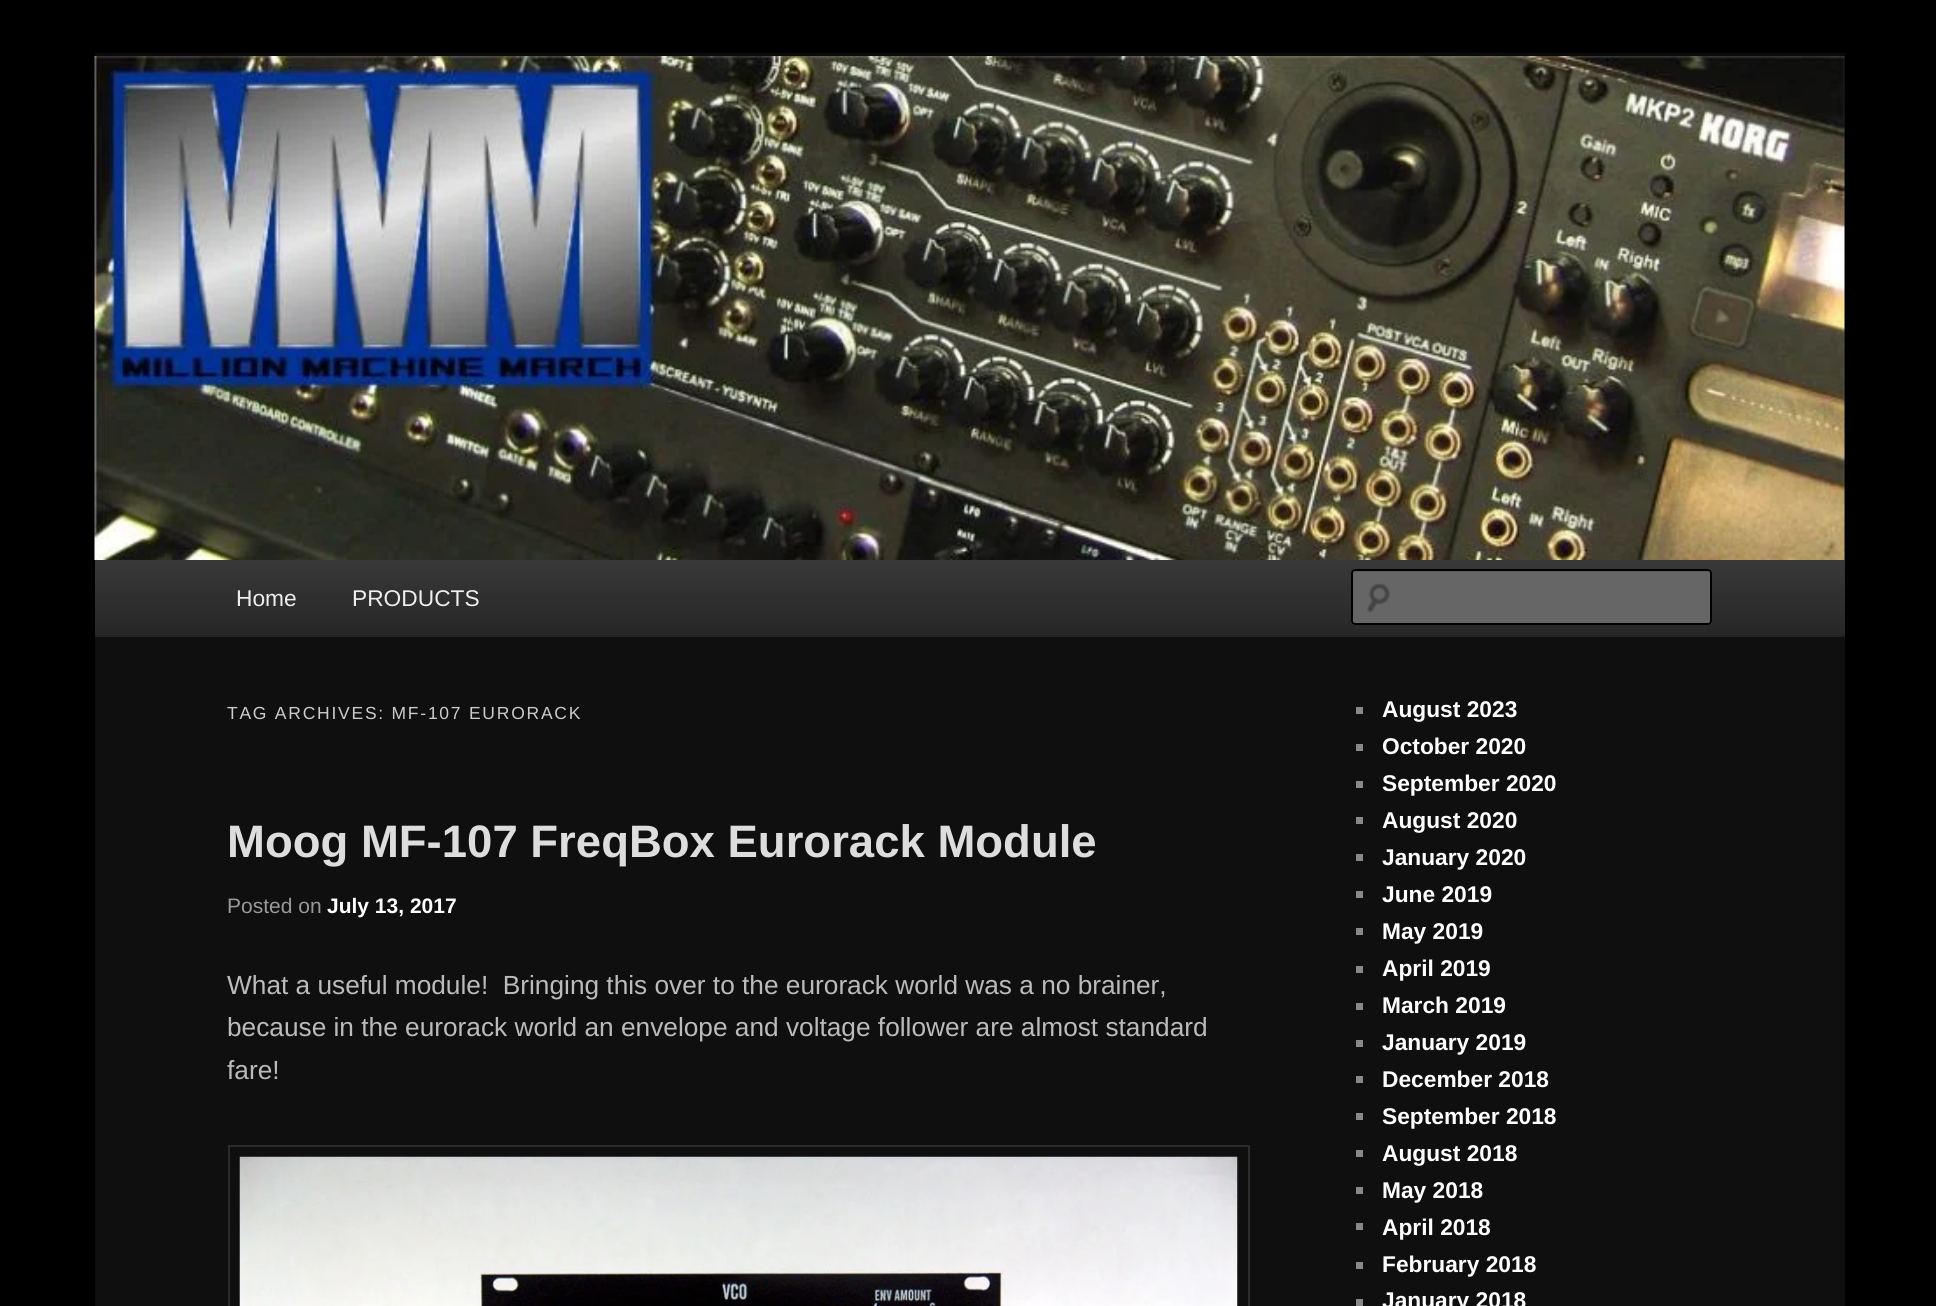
import math
import cairo

surface = cairo.ImageSurface(cairo.FORMAT_RGB24, 1936, 1306)
c = cairo.Context(surface)
options = cairo.FontOptions()
options.set_hint_metrics(cairo.HINT_METRICS_OFF)
options.set_hint_style(cairo.HINT_STYLE_NONE)
c.set_font_options(options)
c.set_miter_limit(4)
def C(code):
 c.set_source_rgb(*(v / 255 for v in bytes.fromhex(code[-6:])))
def F(family, size, italic, bold):
 c.select_font_face(family, cairo.FONT_SLANT_ITALIC if italic else cairo.FONT_SLANT_NORMAL, cairo.FONT_WEIGHT_BOLD if bold else cairo.FONT_WEIGHT_NORMAL)
 c.set_font_size(size)
def T(x, y, s):
 c.move_to(x, y)
 c.show_text(s)
def L(x, y, s, letter, word):
 c.move_to(x, y)
 for ch in s:
  c.show_text(ch)
  c.rel_move_to(letter + word * (ch == ' '), 0)
def R(x, y, w, h):
 c.rectangle(x, y, w, h)
 c.fill()
def Q(x, y, w, h, r):
 c.new_sub_path()
 for i, (u, v) in enumerate([(x + w - r, y + h - r), (x + r, y + h - r), (x + r, y + r), (x + w - r, y + r)]):
  c.arc(u, v, r, i * math.pi / 2, (i + 1) * math.pi / 2)
 c.close_path()
def I(path, x, y, w, h):
 c.save()
 c.set_source_surface(cairo.ImageSurface.create_from_png(path), x, y)
 c.rectangle(x, y, w, h)
 c.fill()
 c.restore()
C('000000')
c.paint()
C('0f0f0f')
R(95,57,1750,1249)
C('0a0a0a')
R(95,53,1750,4)
I('1.png',94,56,1751,504)
gradient = cairo.LinearGradient(970,560,970,635)
gradient.add_color_stop_rgba(0,0.22,0.22,0.22,1)
gradient.add_color_stop_rgba(1,0.153,0.153,0.153,1)
c.set_source(gradient)
R(95,560,1750,75)
C('222222')
R(95,635,1750,2)
F('Liberation Sans',22.75,0,0)
C('eeeeee')
T(236,606,'Home')
T(352,606,'PRODUCTS')
C('666666')
Q(1351,569,361,56,4)
c.fill()
I('2.png',1367,583,23,30)
C('5c5c5c')
c.new_path()
c.move_to(1354,572)
c.line_to(1708,572)
c.curve_to(1709,572,1710,573,1710,574)
c.curve_to(1710,573,1710,571,1708,571)
c.line_to(1355,571)
c.curve_to(1353,571,1353,573,1353,574)
c.close_path()
c.fill()
Q(1352,570,359,54,3)
C('000000')
c.stroke()
F('Liberation Sans',17.5,0,0)
C('cccccc')
L(227,719,'TAG ARCHIVES: MF-107 EURORACK',1.75,0)
F('Liberation Sans',45.5,0,1)
C('dddddd')
T(227,857,'Moog MF-107 FreqBox Eurorack Module')
F('Liberation Sans',21,0,0)
C('999999')
T(227,913,'Posted on')
F('Liberation Sans',21,0,1)
C('ffffff')
T(327,913,'July 13, 2017')
F('Liberation Sans',26.25,0,0)
C('bbbbbb')
T(227,994,'What a useful module!  Bringing this over to the eurorack world was a no brainer,')
T(227,1036,'because in the eurorack world an envelope and voltage follower are almost standard')
T(227,1079,'fare!')
c.rectangle(229,1146,1020,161)
C('2c2c2c')
c.stroke()
I('3.png',239,1156,999,150)
C('888888')
R(1356,707,7,7)
F('Liberation Sans',22.75,0,1)
C('ffffff')
T(1382,717,'August 2023')
C('888888')
R(1356,744,7,7)
C('ffffff')
T(1382,754,'October 2020')
C('888888')
R(1356,781,7,7)
C('ffffff')
T(1382,791,'September 2020')
C('888888')
R(1356,817,7,7)
C('ffffff')
T(1382,828,'August 2020')
C('888888')
R(1356,854,7,7)
C('ffffff')
T(1382,865,'January 2020')
C('888888')
R(1356,891,7,7)
C('ffffff')
T(1382,902,'June 2019')
C('888888')
R(1356,928,7,7)
C('ffffff')
T(1382,939,'May 2019')
C('888888')
R(1356,966,7,7)
C('ffffff')
T(1382,976,'April 2019')
C('888888')
R(1356,1003,7,7)
C('ffffff')
T(1382,1013,'March 2019')
C('888888')
R(1356,1040,7,7)
C('ffffff')
T(1382,1050,'January 2019')
C('888888')
R(1356,1076,7,7)
C('ffffff')
T(1382,1087,'December 2018')
C('888888')
R(1356,1113,7,7)
C('ffffff')
T(1382,1124,'September 2018')
C('888888')
R(1356,1150,7,7)
C('ffffff')
T(1382,1161,'August 2018')
C('888888')
R(1356,1187,7,7)
C('ffffff')
T(1382,1198,'May 2018')
C('888888')
R(1356,1223,7,7)
C('ffffff')
T(1382,1235,'April 2018')
C('888888')
R(1356,1262,7,7)
C('ffffff')
T(1382,1272,'February 2018')
C('888888')
R(1356,1299,7,7)
C('ffffff')
T(1382,1308,'January 2018')
surface.write_to_png('o.png')
